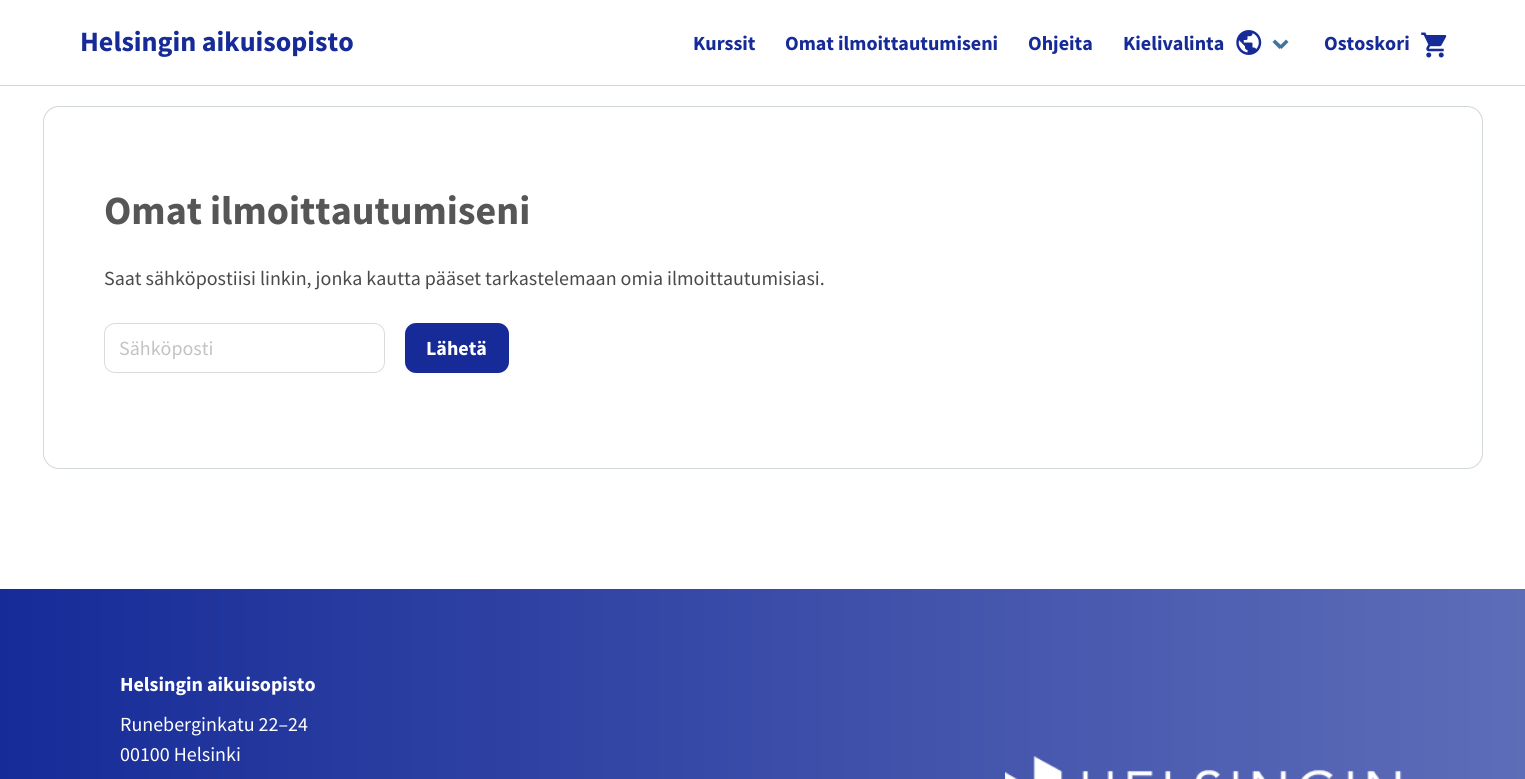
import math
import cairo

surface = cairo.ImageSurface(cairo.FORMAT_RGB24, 1525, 779)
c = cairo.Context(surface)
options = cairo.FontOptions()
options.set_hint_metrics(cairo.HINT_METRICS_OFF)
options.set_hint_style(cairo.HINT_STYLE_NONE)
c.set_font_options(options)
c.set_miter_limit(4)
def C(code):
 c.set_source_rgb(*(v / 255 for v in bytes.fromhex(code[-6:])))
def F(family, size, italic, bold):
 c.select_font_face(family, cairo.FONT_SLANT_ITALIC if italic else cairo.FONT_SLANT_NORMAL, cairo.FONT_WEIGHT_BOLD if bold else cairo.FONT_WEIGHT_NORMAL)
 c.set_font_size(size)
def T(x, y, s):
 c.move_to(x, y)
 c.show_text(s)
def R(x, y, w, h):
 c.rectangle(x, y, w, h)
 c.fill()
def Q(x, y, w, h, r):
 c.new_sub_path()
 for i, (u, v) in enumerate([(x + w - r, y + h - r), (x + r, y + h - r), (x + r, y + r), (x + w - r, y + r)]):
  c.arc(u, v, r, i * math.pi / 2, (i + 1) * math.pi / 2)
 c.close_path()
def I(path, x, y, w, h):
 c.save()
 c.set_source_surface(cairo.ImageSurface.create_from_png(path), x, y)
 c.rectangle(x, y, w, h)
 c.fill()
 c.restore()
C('ffffff')
c.paint()
C('d0d9d2')
R(0,85,1525,1)
F('Source Sans Pro',28,0,1)
C('162b98')
T(80,51,'Helsingin aikuisopisto')
F('Source Sans Pro',20,0,1)
T(693,50,'Kurssit')
T(785,50,'Omat ilmoittautumiseni')
T(1028,50,'Ohjeita')
T(1123,50,'Kielivalinta')
I('1.png',1236,30,26,25)
C('3f759e')
c.new_path()
c.move_to(1279,46.5)
c.line_to(1286,39.5)
c.line_to(1288.5,42)
c.line_to(1281.5,49)
c.close_path()
c.fill()
c.new_path()
c.move_to(1272.5,42)
c.line_to(1275,39.5)
c.line_to(1282.5,46.5)
c.line_to(1279.5,49)
c.close_path()
c.fill()
C('162b98')
T(1324,50,'Ostoskori')
I('2.png',1421,32,26,26)
Q(43.5,106.5,1439,362,15.5)
C('d0d9d2')
c.set_line_width(1)
c.stroke()
F('Source Sans Pro',40,0,1)
C('565656')
T(104,224,'Omat ilmoittautumiseni')
F('Source Sans Pro',20,0,0)
C('4a4a4a')
T(104,285,'Saat sähköpostiisi linkin, jonka kautta pääset tarkastelemaan omia ilmoittautumisiasi.')
Q(104.5,323.5,280,49,10.5)
C('dbdbdb')
c.stroke()
C('c3c3c3')
T(119,355,'Sähköposti')
C('162b98')
Q(405,323,104,50,11)
c.fill()
F('Source Sans Pro',20,0,1)
C('ffffff')
T(426,355,'Lähetä')
gradient = cairo.LinearGradient(1525,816,0,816)
gradient.add_color_stop_rgba(0,0.369,0.427,0.722,1)
gradient.add_color_stop_rgba(1,0.086,0.169,0.596,1)
c.set_source(gradient)
R(0,589,1525,190)
C('ffffff')
T(120,691,'Helsingin aikuisopisto')
F('Source Sans Pro',20,0,0)
T(120,731,'Runeberginkatu 22–24')
T(120,761,'00100 Helsinki')
I('3.png',1005,756,397,23)
surface.write_to_png('o.png')
